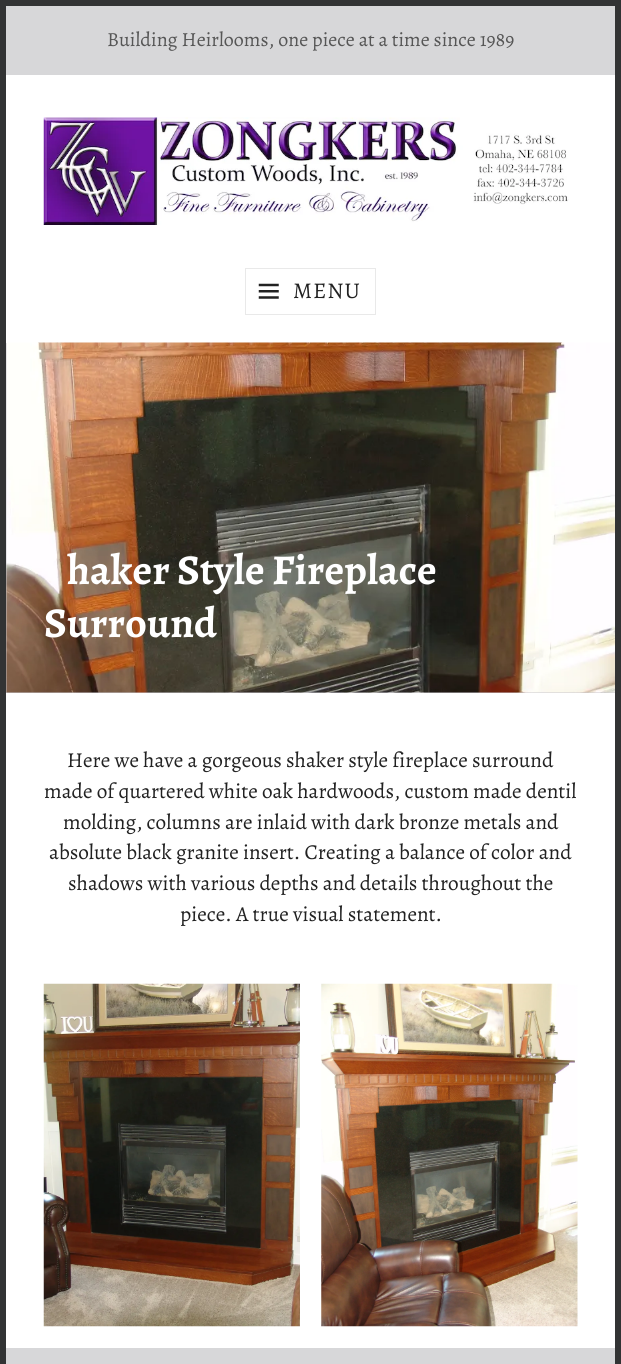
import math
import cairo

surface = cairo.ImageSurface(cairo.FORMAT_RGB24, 621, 1364)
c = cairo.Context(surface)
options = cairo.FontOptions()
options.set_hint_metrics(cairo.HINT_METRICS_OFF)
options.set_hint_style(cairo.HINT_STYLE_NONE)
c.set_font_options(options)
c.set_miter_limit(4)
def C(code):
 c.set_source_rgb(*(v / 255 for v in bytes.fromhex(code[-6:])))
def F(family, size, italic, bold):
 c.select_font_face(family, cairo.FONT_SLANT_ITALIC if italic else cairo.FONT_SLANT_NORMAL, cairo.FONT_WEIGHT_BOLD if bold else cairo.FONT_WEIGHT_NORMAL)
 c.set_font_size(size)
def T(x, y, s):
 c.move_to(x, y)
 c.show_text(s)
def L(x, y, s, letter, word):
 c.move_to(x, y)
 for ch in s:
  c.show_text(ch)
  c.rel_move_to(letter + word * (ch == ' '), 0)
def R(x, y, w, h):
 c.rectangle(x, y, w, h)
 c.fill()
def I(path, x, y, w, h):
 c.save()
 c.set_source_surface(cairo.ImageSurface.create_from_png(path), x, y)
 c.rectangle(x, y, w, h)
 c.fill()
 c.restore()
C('323334')
c.paint()
C('ffffff')
R(6,75,609,268)
C('d7d7d9')
R(6,6,609,69)
F('Alegreya',20,0,0)
C('565656')
T(107,46,'Building Heirlooms, one piece at a time since 1989')
I('1.png',43,117,526,108)
c.rectangle(245.5,268.5,130,46)
C('e9e9e9')
c.set_line_width(1)
c.stroke()
I('2.png',258,283,21,16)
F('Alegreya',22.5,0,0)
C('222222')
L(293,298,'MENU',1,0)
C('cac8cf')
R(6,343,609,350)
I('3.png',6,342,609,351)
F('Alegreya',42.5,0,1)
C('ffffff')
T(67,584,'haker Style Fireplace')
T(44,637,'Surround')
R(6,693,609,655)
F('Alegreya',21.25,0,0)
C('222222')
T(67,767,'Here we have a gorgeous shaker style fireplace surround')
T(44,798,'made of quartered white oak hardwoods, custom made dentil')
T(63,829,'molding, columns are inlaid with dark bronze metals and')
T(49,859,'absolute black granite insert. Creating a balance of color and')
T(68,890,'shadows with various depths and details throughout the')
T(180,921,'piece. A true visual statement.')
I('4.png',43,983,257,344)
I('5.png',321,983,257,344)
C('d7d7d9')
R(6,1348,609,16)
surface.write_to_png('o.png')
